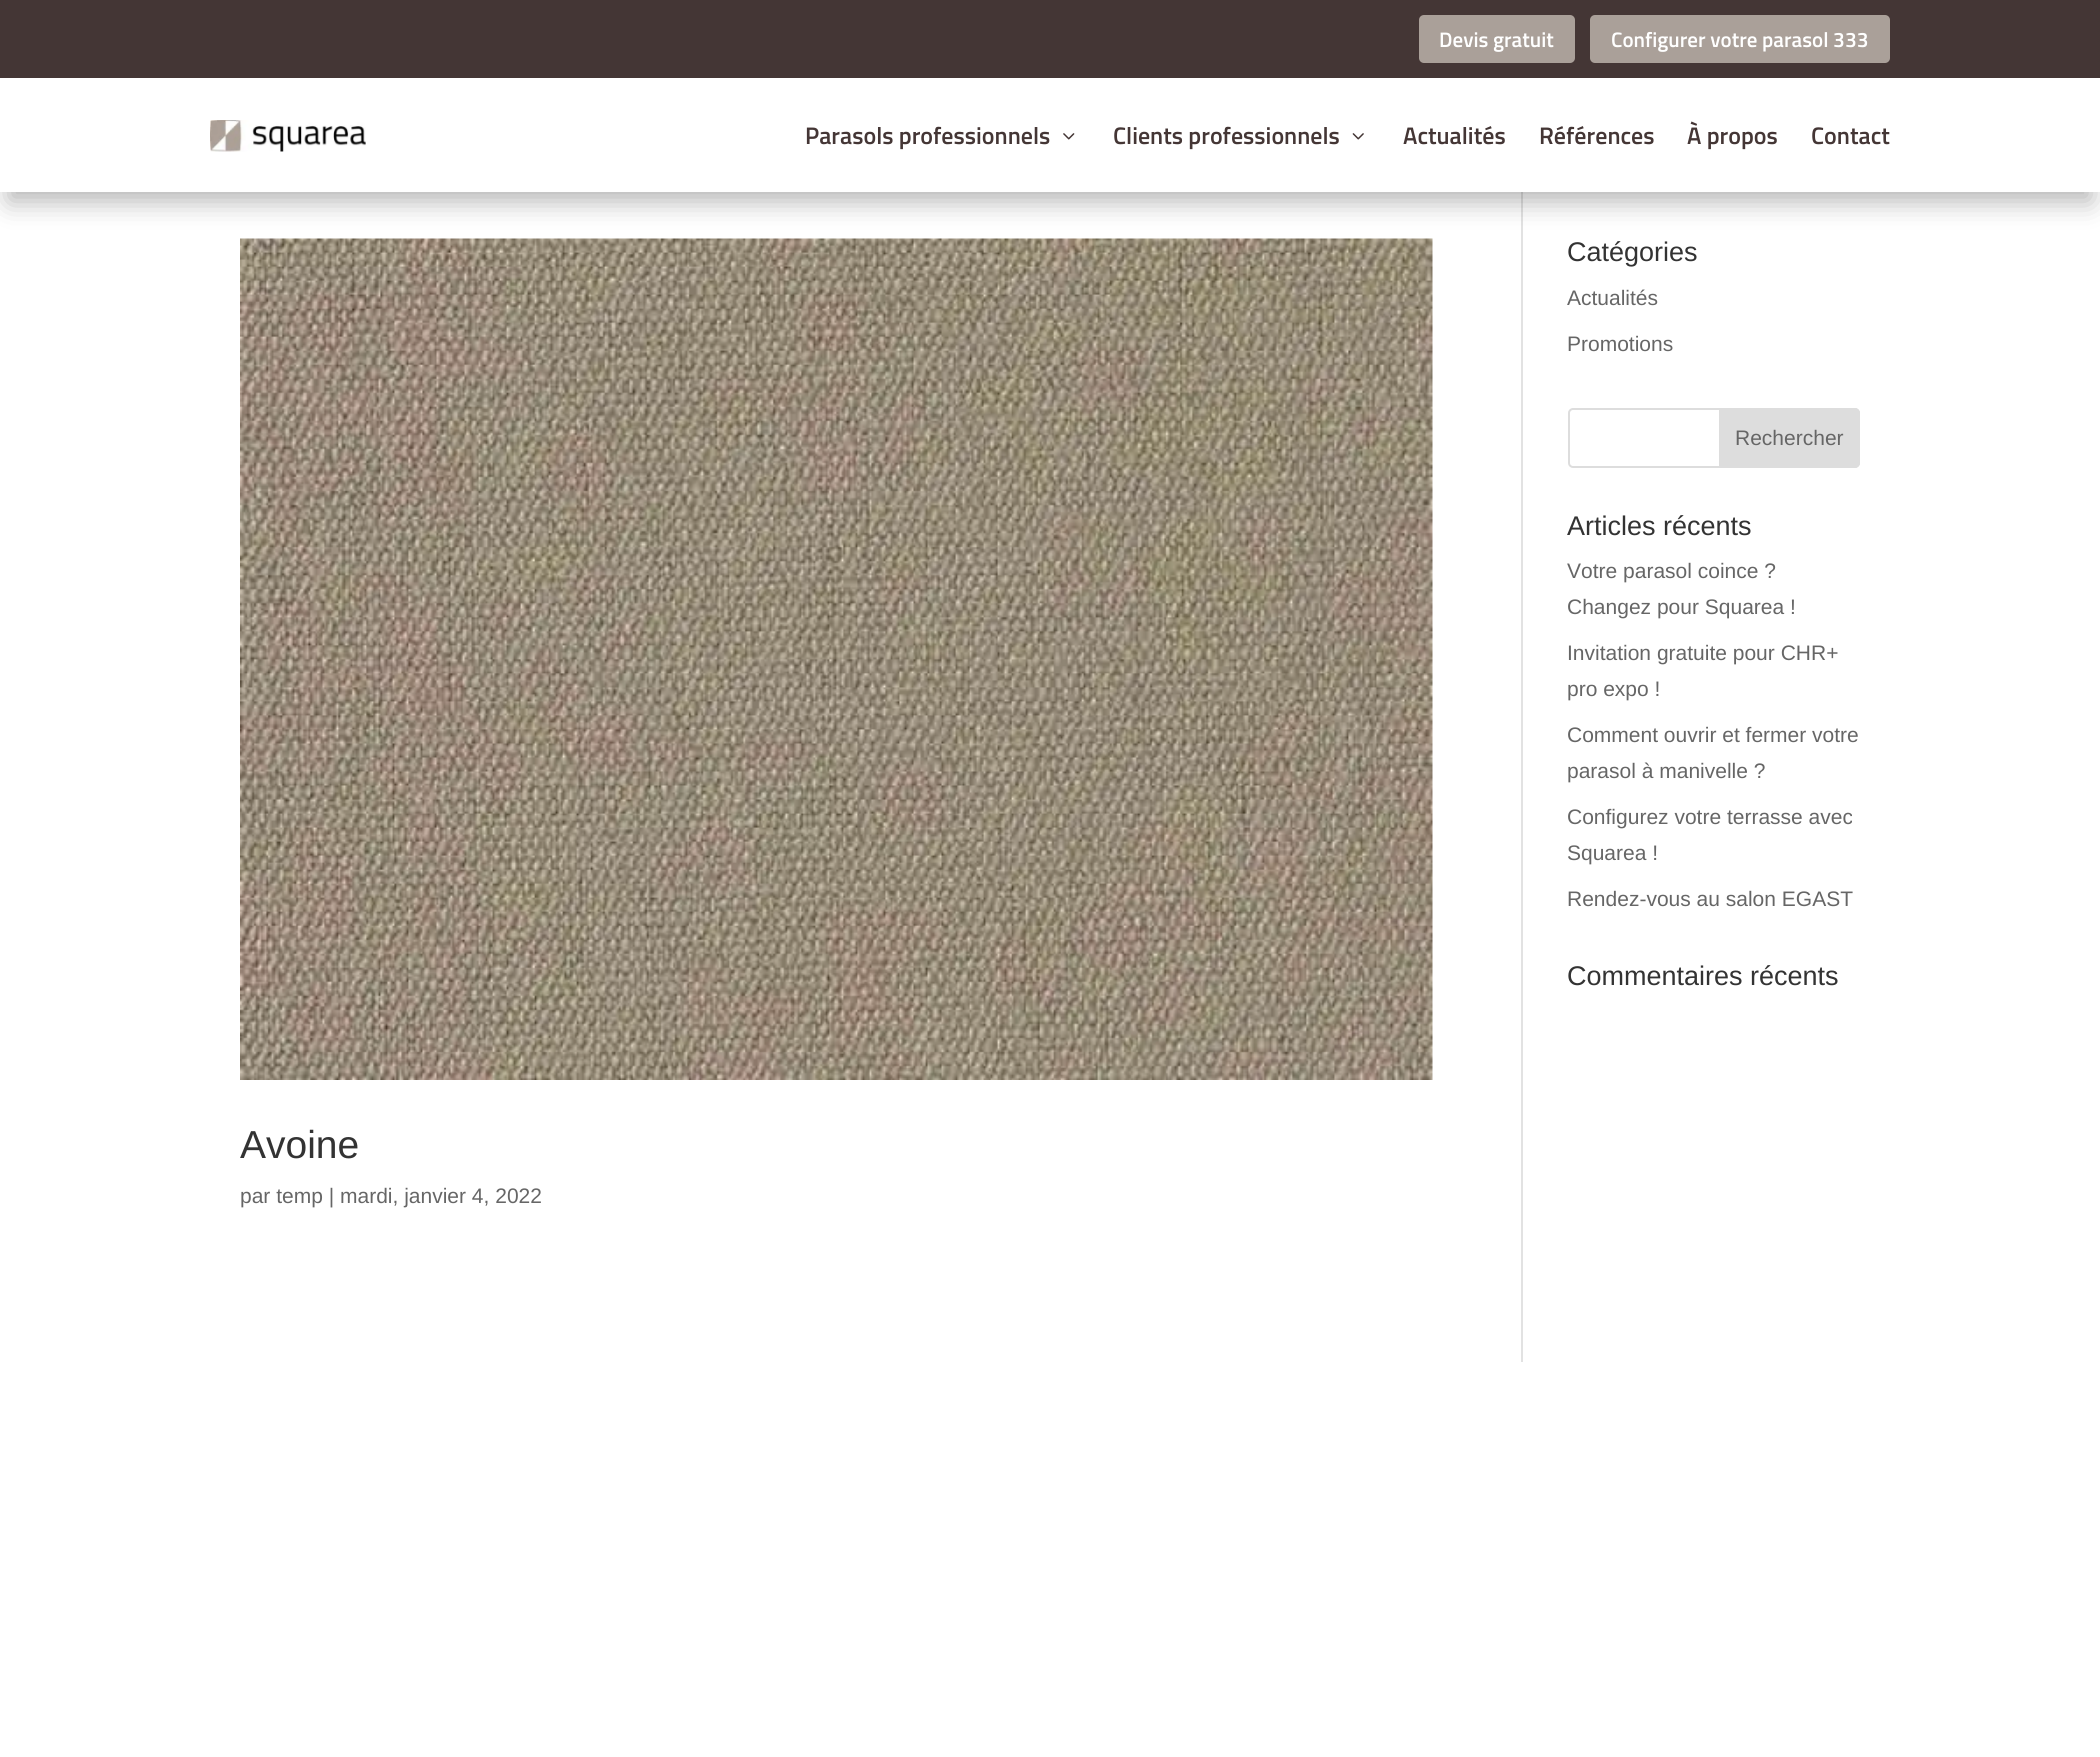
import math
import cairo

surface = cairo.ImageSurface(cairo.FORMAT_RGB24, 2100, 1757)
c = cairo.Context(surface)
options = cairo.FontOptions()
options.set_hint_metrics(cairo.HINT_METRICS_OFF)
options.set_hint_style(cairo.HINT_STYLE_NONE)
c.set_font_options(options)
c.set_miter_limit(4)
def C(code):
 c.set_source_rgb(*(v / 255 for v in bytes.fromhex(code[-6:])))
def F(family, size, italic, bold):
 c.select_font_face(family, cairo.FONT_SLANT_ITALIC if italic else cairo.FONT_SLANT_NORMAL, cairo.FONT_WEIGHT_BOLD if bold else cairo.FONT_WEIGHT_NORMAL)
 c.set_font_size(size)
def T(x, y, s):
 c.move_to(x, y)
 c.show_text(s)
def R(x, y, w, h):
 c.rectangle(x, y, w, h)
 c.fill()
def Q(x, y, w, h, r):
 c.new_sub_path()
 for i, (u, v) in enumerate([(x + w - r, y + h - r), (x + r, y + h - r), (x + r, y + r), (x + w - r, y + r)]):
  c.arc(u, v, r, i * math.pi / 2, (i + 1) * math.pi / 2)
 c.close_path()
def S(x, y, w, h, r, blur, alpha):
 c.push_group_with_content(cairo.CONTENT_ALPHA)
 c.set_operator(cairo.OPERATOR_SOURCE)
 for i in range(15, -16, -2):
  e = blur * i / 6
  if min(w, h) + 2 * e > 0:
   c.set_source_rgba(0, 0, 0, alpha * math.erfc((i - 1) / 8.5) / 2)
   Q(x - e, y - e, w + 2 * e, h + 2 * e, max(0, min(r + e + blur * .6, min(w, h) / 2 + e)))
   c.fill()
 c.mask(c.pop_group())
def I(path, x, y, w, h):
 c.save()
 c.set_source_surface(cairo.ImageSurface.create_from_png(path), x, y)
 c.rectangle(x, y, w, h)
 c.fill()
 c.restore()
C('ffffff')
c.paint()
C('e2e2e2')
R(1521,192,2,1170)
I('4.png',240,238,1193,842)
C('000000')
S(9,27,2082,174,0,13.5,.3)
C('ffffff')
R(0,78,2100,114)
C('443635')
R(0,0,2100,78)
C('aaa099')
Q(1419,15,156,48,5)
c.fill()
F('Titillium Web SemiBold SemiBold',21,0,0)
C('ffffff')
T(1439,47,'Devis gratuit')
C('aaa099')
Q(1590,15,300,48,5)
c.fill()
C('ffffff')
T(1611,47,'Configurer votre parasol 333')
I('1.png',210,120,156,32)
F('Titillium Web SemiBold SemiBold',24,0,0)
C('443635')
T(805,144,'Parasols professionnels')
I('2.png',1063,133,12,7)
T(1113,144,'Clients professionnels')
I('3.png',1352,133,12,7)
T(1403,144,'Actualités')
T(1539,144,'Références')
T(1687,144,'À propos')
T(1811,144,'Contact')
F('Liberation Sans',27,0,0)
C('333333')
T(1567,261,'Catégories')
F('Liberation Sans',21,0,0)
C('666666')
T(1567,305,'Actualités')
T(1567,351,'Promotions')
Q(1569,409,290,58,4)
C('dddddd')
c.stroke()
c.new_path()
c.move_to(1720,409)
c.line_to(1855,409)
c.curve_to(1857,409,1859,411,1859,413)
c.line_to(1859,463)
c.curve_to(1859,465,1857,467,1855,467)
c.line_to(1720,467)
c.close_path()
c.fill_preserve()
c.stroke()
C('666666')
T(1735,445,'Rechercher')
F('Liberation Sans',27,0,0)
C('333333')
T(1567,535,'Articles récents')
F('Liberation Sans',21,0,0)
C('666666')
T(1567,578,'Votre parasol coince ?')
T(1567,614,'Changez pour Squarea !')
T(1567,660,'Invitation gratuite pour CHR+')
T(1567,696,'pro expo !')
T(1567,742,'Comment ouvrir et fermer votre')
T(1567,778,'parasol à manivelle ?')
T(1567,824,'Configurez votre terrasse avec')
T(1567,860,'Squarea !')
T(1567,906,'Rendez-vous au salon EGAST')
F('Liberation Sans',27,0,0)
C('333333')
T(1567,985,'Commentaires récents')
F('Liberation Sans',39,0,0)
T(240,1158,'Avoine')
F('Liberation Sans',21,0,0)
C('666666')
T(240,1203,'par temp | mardi, janvier 4, 2022')
surface.write_to_png('o.png')
